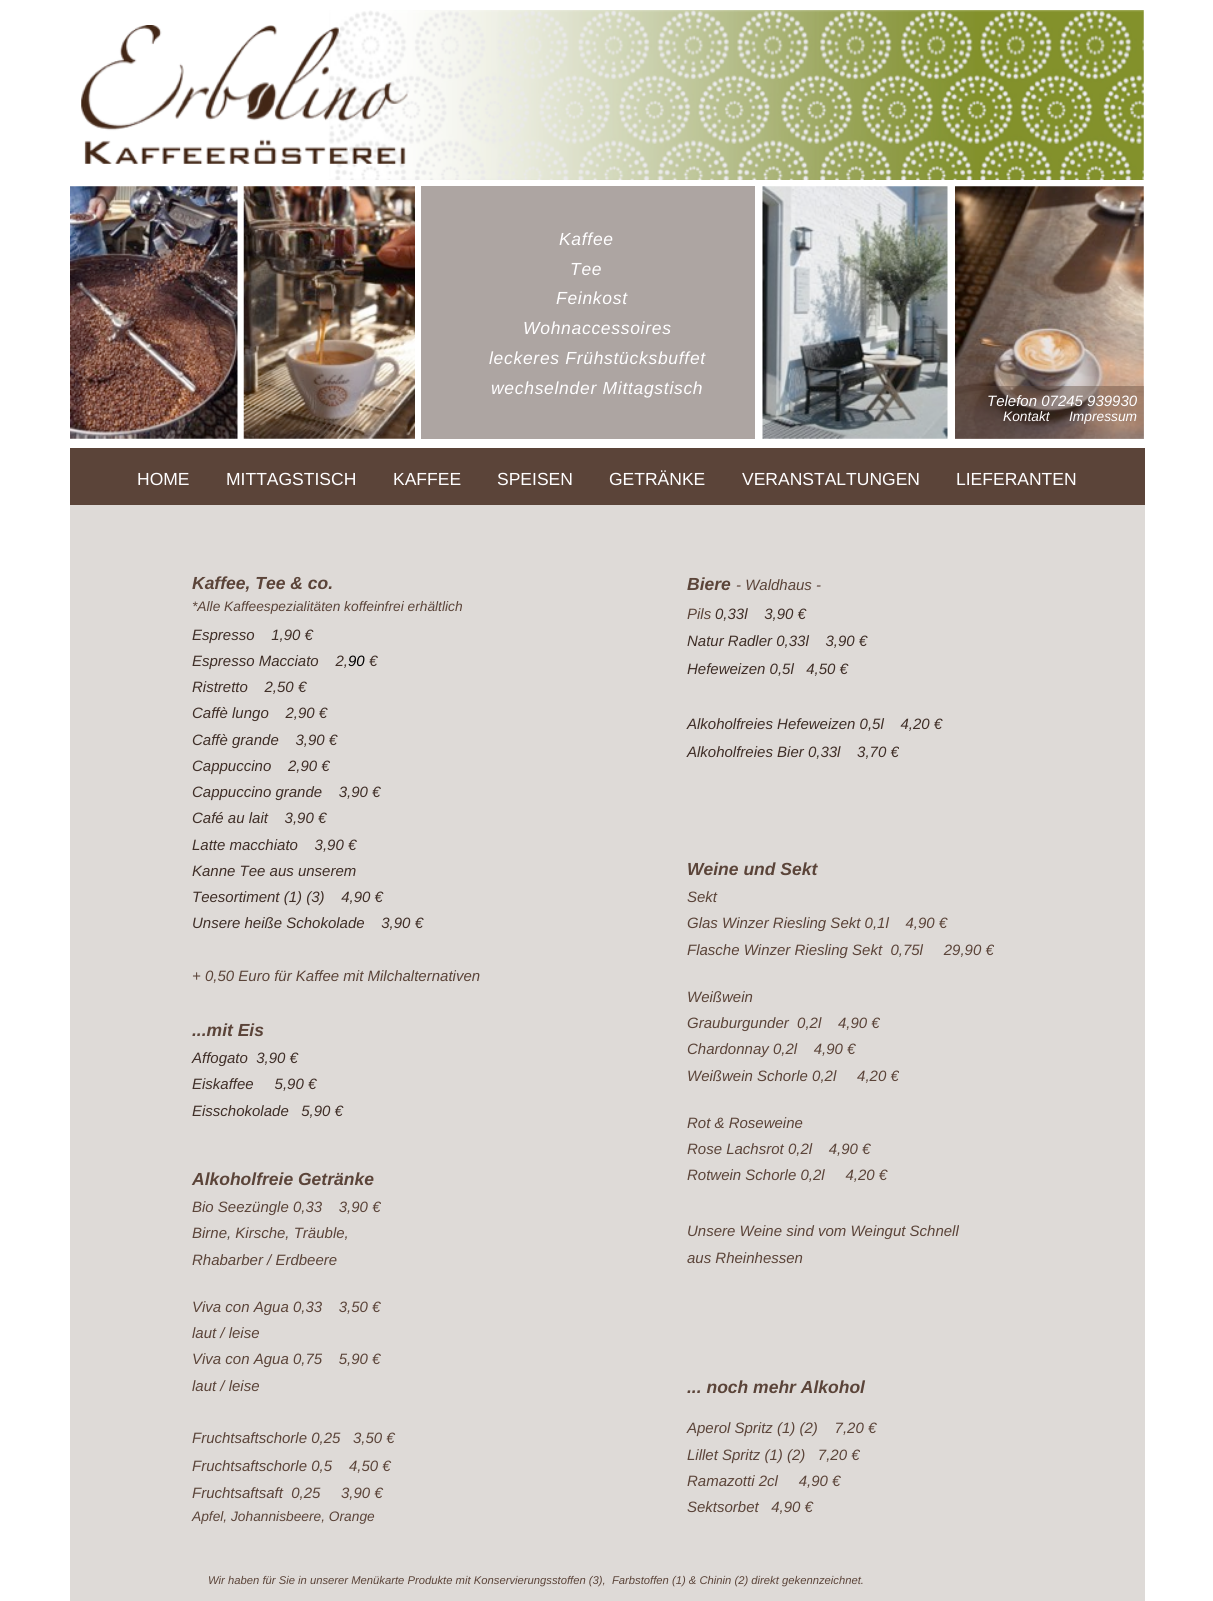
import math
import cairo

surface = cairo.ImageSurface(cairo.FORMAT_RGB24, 1213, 1601)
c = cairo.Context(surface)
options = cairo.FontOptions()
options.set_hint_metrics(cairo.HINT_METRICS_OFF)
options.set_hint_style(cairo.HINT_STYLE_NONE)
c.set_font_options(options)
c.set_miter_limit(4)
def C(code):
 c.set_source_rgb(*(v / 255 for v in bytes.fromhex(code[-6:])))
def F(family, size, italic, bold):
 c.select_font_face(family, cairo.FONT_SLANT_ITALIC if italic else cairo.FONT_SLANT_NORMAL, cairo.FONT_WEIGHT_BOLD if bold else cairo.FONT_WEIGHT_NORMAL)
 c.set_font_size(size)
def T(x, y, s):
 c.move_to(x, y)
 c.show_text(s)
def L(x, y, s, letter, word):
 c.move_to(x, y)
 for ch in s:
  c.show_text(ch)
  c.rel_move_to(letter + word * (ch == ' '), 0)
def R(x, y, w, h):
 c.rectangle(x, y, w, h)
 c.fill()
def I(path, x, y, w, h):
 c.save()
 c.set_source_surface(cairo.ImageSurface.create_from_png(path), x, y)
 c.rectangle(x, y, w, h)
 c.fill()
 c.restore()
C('ffffff')
c.paint()
C('dedad7')
R(70,505,1075,1096)
I('2.png',328,10,816,170)
I('1.png',81,25,327,139)
I('3.png',70,186,168,253)
I('4.png',243,186,172,253)
C('ada5a2')
R(421,186,334,253)
I('5.png',762,186,186,253)
I('6.png',955,186,189,253)
F('Liberation Sans',17.5,1,0)
C('fffeff')
L(559,245,'Kaffee',.7,0)
L(570,275,'Tee',.7,0)
L(556,304,'Feinkost',.7,0)
L(523,334,'Wohnaccessoires',.7,0)
L(489,364,'leckeres Frühstücksbuffet',.7,0)
L(491,394,'wechselnder Mittagstisch',.7,0)
c.set_source_rgba(0.357,0.267,0.224,0.41)
R(955,386,189,53)
F('Liberation Sans',15,1,0)
C('fffeff')
T(987,406,'Telefon 07245 939930')
F('Liberation Sans',13.75,1,0)
T(1003,421,'Kontakt')
T(1069,421,'Impressum')
C('5b4439')
R(70,448,1075,57)
F('Liberation Sans',17.5,0,0)
C('fffeff')
T(137,485,'HOME')
T(226,485,'MITTAGSTISCH')
T(393,485,'KAFFEE')
T(497,485,'SPEISEN')
T(609,485,'GETRÄNKE')
T(742,485,'VERANSTALTUNGEN')
T(956,485,'LIEFERANTEN')
F('Liberation Sans',17.5,1,1)
C('5b4439')
T(192,589,'Kaffee, Tee & co.')
F('Liberation Sans',13.75,1,0)
T(192,611,'*Alle Kaffeespezialitäten koffeinfrei erhältlich')
F('Liberation Sans',15,1,0)
C('3f2e27')
T(192,640,'Espresso    1,90 €')
T(192,666,'Espresso Macciato    2,')
C('000000')
T(348,666,'90')
C('3f2e27')
T(369,666,'€')
T(192,692,'Ristretto    2,50 €')
T(192,718,'Caffè lungo    2,90 €')
T(192,745,'Caffè grande    3,90 €')
T(192,771,'Cappuccino    2,90 €')
T(192,797,'Cappuccino grande    3,90 €')
T(192,823,'Café au lait    3,90 €')
T(192,850,'Latte macchiato    3,90 €')
T(192,876,'Kanne Tee aus unserem')
T(192,902,'Teesortiment (1) (3)    4,90 €')
T(192,928,'Unsere heiße Schokolade    3,90 €')
C('5b4439')
T(192,981,'+ 0,50 Euro für Kaffee mit Milchalternativen')
F('Liberation Sans',17.5,1,1)
T(192,1036,'...mit Eis')
F('Liberation Sans',15,1,0)
C('3f2e27')
T(192,1063,'Affogato  3,90 €')
T(192,1089,'Eiskaffee     5,90 €')
T(192,1116,'Eisschokolade   5,90 €')
F('Liberation Sans',17.5,1,1)
C('5b4439')
T(687,590,'Biere')
F('Liberation Sans',15,1,0)
T(736,590,'- Waldhaus -')
T(687,619,'Pils')
C('3f2e27')
T(715,619,'0,33l    3,90 €')
T(687,646,'Natur Radler 0,33l    3,90 €')
T(687,674,'Hefeweizen 0,5l   4,50 €')
T(687,729,'Alkoholfreies Hefeweizen 0,5l    4,20 €')
T(687,757,'Alkoholfreies Bier 0,33l    3,70 €')
F('Liberation Sans',17.5,1,1)
C('5b4439')
T(687,875,'Weine und Sekt')
F('Liberation Sans',15,1,0)
T(687,902,'Sekt')
T(687,928,'Glas Winzer Riesling Sekt 0,1l    4,90 €')
T(687,955,'Flasche Winzer Riesling Sekt  0,75l     29,90 €')
T(687,1002,'Weißwein')
T(687,1028,'Grauburgunder  0,2l    4,90 €')
T(687,1054,'Chardonnay 0,2l    4,90 €')
T(687,1081,'Weißwein Schorle 0,2l     4,20 €')
T(687,1128,'Rot & Roseweine')
T(687,1154,'Rose Lachsrot 0,2l    4,90 €')
T(687,1180,'Rotwein Schorle 0,2l     4,20 €')
T(687,1236,'Unsere Weine sind vom Weingut Schnell')
T(687,1263,'aus Rheinhessen')
F('Liberation Sans',17.5,1,1)
T(192,1185,'Alkoholfreie Getränke')
F('Liberation Sans',15,1,0)
T(192,1212,'Bio Seezüngle 0,33    3,90 €')
T(192,1238,'Birne, Kirsche, Träuble,')
T(192,1265,'Rhabarber / Erdbeere')
T(192,1312,'Viva con Agua 0,33    3,50 €')
T(192,1338,'laut / leise')
T(192,1364,'Viva con Agua 0,75    5,90 €')
T(192,1391,'laut / leise')
T(192,1443,'Fruchtsaftschorle 0,25')
T(353,1443,'3,50 €')
T(192,1471,'Fruchtsaftschorle 0,5')
T(349,1471,'4,50 €')
T(192,1498,'Fruchtsaftsaft  0,25')
T(341,1498,'3,90 €')
F('Liberation Sans',13.75,1,0)
T(192,1521,'Apfel, Johannisbeere, Orange')
F('Liberation Sans',17.5,1,1)
T(687,1393,'... noch mehr Alkohol')
F('Liberation Sans',15,1,0)
T(687,1433,'Aperol Spritz (1) (2)    7,20 €')
T(687,1460,'Lillet Spritz (1) (2)   7,20 €')
T(687,1486,'Ramazotti 2cl     4,90 €')
T(687,1512,'Sektsorbet   4,90 €')
F('Liberation Sans',11.25,1,0)
T(208,1584,'Wir haben für Sie in unserer Menükarte Produkte mit Konservierungsstoffen (3),  Farbstoffen (1) & Chinin (2) direkt gekennzeichnet.')
surface.write_to_png('o.png')
